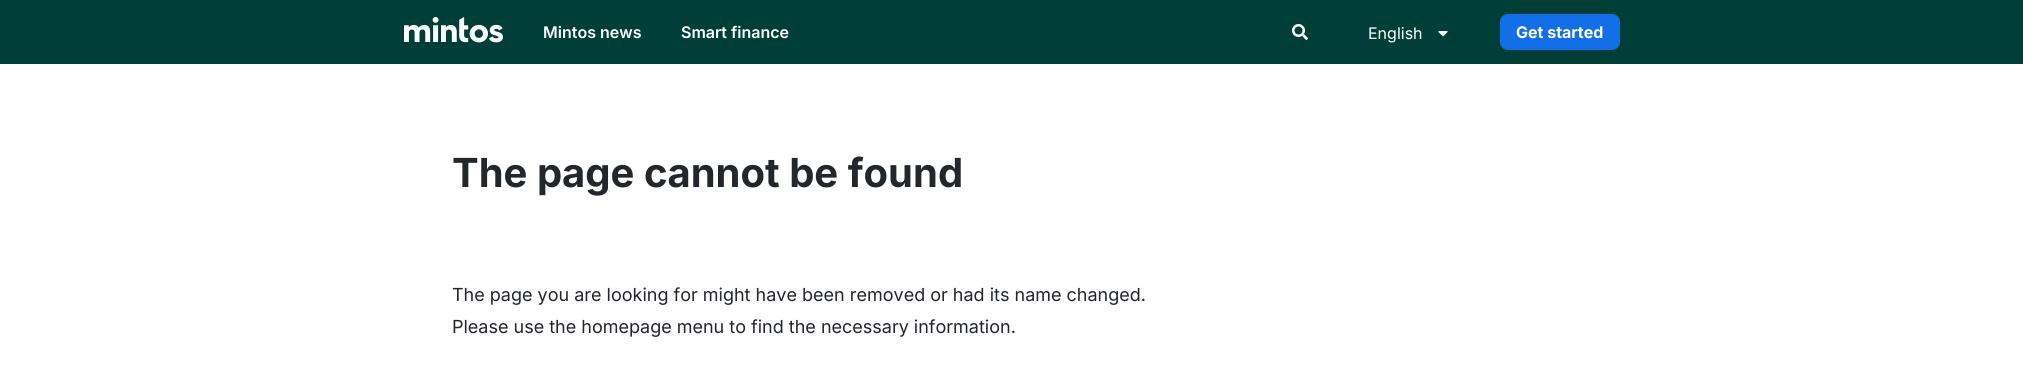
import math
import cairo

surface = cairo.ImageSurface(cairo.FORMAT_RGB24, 2023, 390)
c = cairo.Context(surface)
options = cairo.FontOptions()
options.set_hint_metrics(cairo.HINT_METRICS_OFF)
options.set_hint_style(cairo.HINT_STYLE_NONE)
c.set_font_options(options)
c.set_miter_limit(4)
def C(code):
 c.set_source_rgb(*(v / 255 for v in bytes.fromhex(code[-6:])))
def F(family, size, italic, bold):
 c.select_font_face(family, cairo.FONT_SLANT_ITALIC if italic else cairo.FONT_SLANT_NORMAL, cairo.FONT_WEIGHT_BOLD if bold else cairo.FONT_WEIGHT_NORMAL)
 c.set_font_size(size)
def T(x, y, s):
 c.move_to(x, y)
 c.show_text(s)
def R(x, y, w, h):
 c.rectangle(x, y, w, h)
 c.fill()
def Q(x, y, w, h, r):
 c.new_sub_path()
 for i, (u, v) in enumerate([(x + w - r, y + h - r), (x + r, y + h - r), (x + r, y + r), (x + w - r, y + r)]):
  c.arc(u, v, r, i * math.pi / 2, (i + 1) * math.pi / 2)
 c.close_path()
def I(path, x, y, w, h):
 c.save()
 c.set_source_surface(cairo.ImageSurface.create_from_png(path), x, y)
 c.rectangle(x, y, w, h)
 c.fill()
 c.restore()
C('ffffff')
c.paint()
C('003f38')
R(0,0,2023,64)
I('1.png',404,16,99,27)
F('Inter SemiBold',16,0,0)
C('ffffff')
T(543,38,'Mintos news')
T(681,38,'Smart finance')
I('2.png',1292,24,16,16)
F('Inter',16,0,0)
T(1368,39,'English')
I('3.png',1438,31,10,6)
C('136fe8')
Q(1500,14,120,36,8)
c.fill()
F('Inter',16,0,1)
C('ffffff')
T(1516,38,'Get started')
F('Inter',40,0,1)
C('23262a')
T(452,187,'The page cannot be found')
F('Inter',18,0,0)
T(452,301,'The page you are looking for might have been removed or had its name changed.')
T(452,333,'Please use the homepage menu to find the necessary information.')
surface.write_to_png('o.png')
